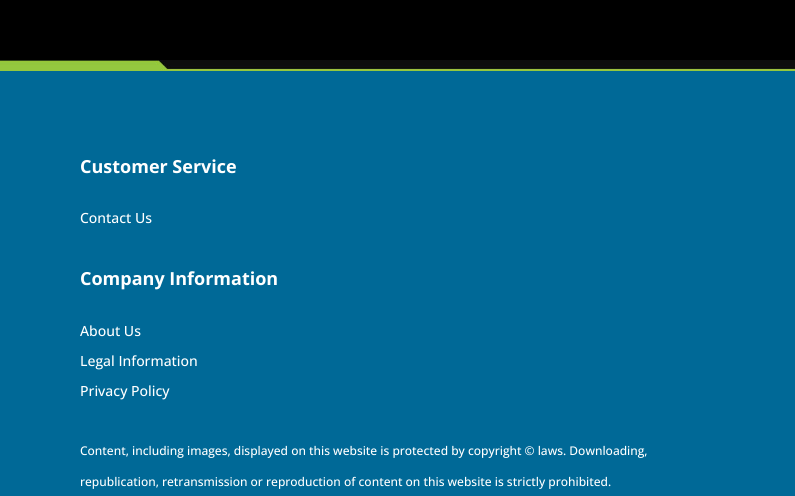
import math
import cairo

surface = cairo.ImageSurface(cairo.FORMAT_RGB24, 795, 496)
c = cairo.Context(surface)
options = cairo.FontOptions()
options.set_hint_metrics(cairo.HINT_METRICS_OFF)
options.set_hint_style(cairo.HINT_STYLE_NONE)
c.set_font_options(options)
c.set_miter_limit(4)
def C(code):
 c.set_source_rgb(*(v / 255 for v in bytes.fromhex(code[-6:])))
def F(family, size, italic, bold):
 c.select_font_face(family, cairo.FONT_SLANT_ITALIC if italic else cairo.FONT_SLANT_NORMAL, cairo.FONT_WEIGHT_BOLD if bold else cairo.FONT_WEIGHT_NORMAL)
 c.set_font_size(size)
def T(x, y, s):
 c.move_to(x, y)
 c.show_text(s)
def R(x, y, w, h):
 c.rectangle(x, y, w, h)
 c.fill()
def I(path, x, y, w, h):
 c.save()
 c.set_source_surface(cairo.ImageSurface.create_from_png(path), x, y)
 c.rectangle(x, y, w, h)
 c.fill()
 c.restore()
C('000000')
c.paint()
I('1.png',0,60,795,11)
C('006997')
R(0,71,795,425)
F('Open Sans',18,0,1)
C('ffffff')
T(80,173,'Customer Service')
F('Open Sans Medium',14,0,0)
T(80,223,'Contact Us')
F('Open Sans',18,0,1)
T(80,285,'Company Information')
F('Open Sans Medium',14,0,0)
T(80,336,'About Us')
T(80,366,'Legal Information')
T(80,396,'Privacy Policy')
F('Open Sans Medium',12,0,0)
T(80,455,'Content, including images, displayed on this website is protected by copyright © laws. Downloading,')
T(80,486,'republication, retransmission or reproduction of content on this website is strictly prohibited.')
surface.write_to_png('o.png')
